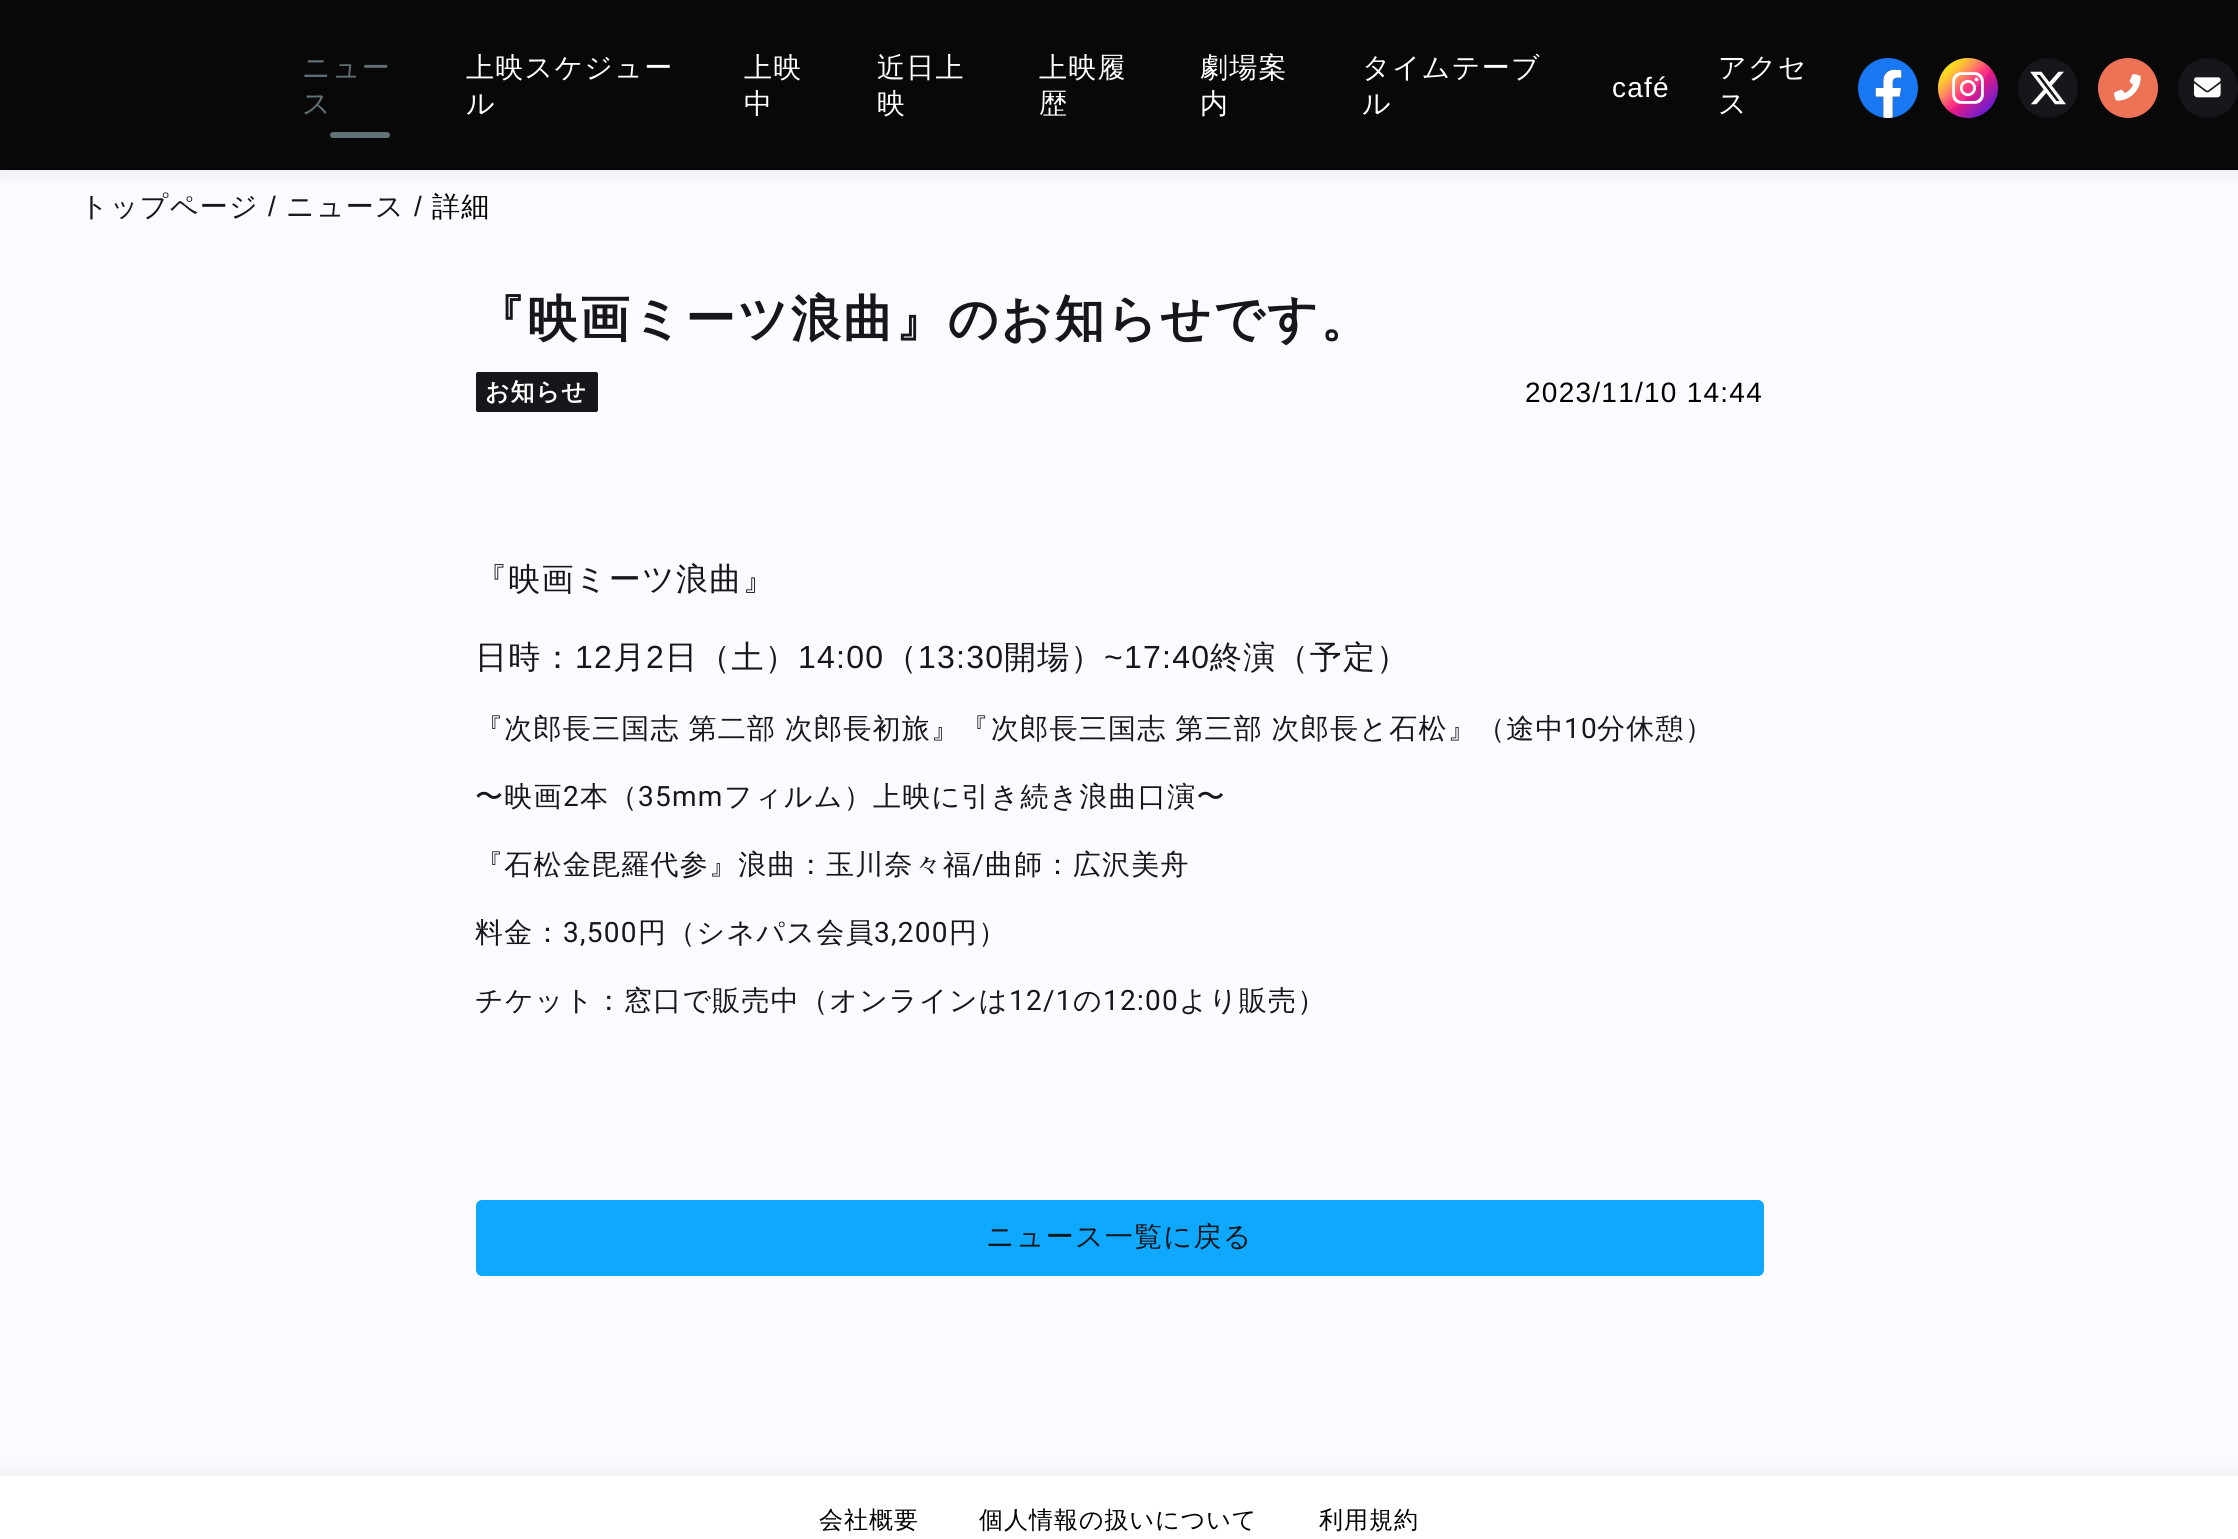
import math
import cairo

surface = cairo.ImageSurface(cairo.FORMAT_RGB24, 2238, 1539)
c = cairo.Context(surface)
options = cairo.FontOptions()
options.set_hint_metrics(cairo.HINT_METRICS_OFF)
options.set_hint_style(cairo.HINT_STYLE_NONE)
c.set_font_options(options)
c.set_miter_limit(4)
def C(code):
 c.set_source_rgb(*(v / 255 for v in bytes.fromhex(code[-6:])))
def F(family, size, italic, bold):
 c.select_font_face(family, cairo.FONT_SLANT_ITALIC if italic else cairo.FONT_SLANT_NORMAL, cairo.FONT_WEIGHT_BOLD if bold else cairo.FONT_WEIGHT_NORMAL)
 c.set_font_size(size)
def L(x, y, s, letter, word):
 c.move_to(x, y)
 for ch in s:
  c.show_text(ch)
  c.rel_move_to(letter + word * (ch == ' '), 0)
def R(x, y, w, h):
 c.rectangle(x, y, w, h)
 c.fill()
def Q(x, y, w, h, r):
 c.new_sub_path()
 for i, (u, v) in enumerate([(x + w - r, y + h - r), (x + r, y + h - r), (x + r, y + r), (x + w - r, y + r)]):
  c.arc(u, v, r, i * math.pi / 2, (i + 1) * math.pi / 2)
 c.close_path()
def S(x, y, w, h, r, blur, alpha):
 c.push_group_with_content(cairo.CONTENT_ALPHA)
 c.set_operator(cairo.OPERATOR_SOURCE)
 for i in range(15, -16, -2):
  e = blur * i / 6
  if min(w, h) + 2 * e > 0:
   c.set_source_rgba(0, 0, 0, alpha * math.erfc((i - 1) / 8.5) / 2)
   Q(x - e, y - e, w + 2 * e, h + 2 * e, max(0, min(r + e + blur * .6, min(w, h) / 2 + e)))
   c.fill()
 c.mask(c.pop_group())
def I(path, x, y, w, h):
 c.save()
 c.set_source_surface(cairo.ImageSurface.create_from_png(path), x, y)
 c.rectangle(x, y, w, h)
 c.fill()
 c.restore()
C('fbfbff')
c.paint()
C('000000')
S(0,0,2238,170,0,12,.08)
C('080808')
R(0,0,2238,170)
F('WenQuanYi Zen Hei Medium',28,0,0)
C('5f7177')
L(302,77,'ニュー',1.25,0)
L(302,113,'ス',1.25,0)
Q(330,132,60,6,3)
c.fill()
C('ffffff')
L(466,77,'上映スケジュー',1.25,0)
L(466,113,'ル',1.25,0)
L(744,77,'上映',1.25,0)
L(744,113,'中',1.25,0)
L(877,77,'近日上',1.25,0)
L(877,113,'映',1.25,0)
L(1039,77,'上映履',1.25,0)
L(1039,113,'歴',1.25,0)
L(1200,77,'劇場案',1.25,0)
L(1200,113,'内',1.25,0)
L(1362,77,'タイムテーブ',1.25,0)
L(1362,113,'ル',1.25,0)
F('Liberation Sans',28,0,0)
L(1612,97,'café',1.25,0)
F('WenQuanYi Zen Hei Medium',28,0,0)
L(1718,77,'アクセ',1.25,0)
L(1718,113,'ス',1.25,0)
I('1.png',1858,58,60,60)
I('2.png',1938,58,60,60)
C('16171b')
c.arc(2048,88,30,0,2 * math.pi)
c.fill()
I('3.png',2030,71,36,34)
C('ee7255')
c.arc(2128,88,30,0,2 * math.pi)
c.fill()
I('4.png',2114,74,27,27)
C('16171b')
c.arc(2208,88,30,0,2 * math.pi)
c.fill()
I('5.png',2194,77,27,21)
L(80,216,'トップページ',1.25,0)
F('Liberation Sans',28,0,0)
L(268,216,'/',1.25,0)
F('WenQuanYi Zen Hei Medium',28,0,0)
L(286,216,'ニュース',1.25,0)
F('Liberation Sans',28,0,0)
L(414,216,'/',1.25,0)
F('WenQuanYi Zen Hei Medium',28,0,0)
C('000000')
L(432,216,'詳細',1.25,0)
F('WenQuanYi Zen Hei',50,0,1)
C('16171b')
L(475,336,'『映画ミーツ浪曲』のお知らせです。',2.25,0)
Q(476,372,122,40,2)
c.fill()
F('WenQuanYi Zen Hei',24,0,1)
C('ffffff')
L(485,400,'お知らせ',1,0)
F('Liberation Sans',28,0,0)
C('000000')
L(1525,402,'2023/11/10 14:44',1.25,0)
F('WenQuanYi Zen Hei Medium',32,0,0)
C('16171b')
L(475,590,'『映画ミーツ浪曲』',1.25,0)
L(475,668,'日時：',1.25,0)
F('Liberation Sans',32,0,0)
L(575,668,'12',1.25,0)
F('WenQuanYi Zen Hei Medium',32,0,0)
L(613,668,'月',1.25,0)
F('Liberation Sans',32,0,0)
L(646,668,'2',1.25,0)
F('WenQuanYi Zen Hei Medium',32,0,0)
L(665,668,'日（土）',1.25,0)
F('Liberation Sans',32,0,0)
L(798,668,'14:00',1.25,0)
F('WenQuanYi Zen Hei Medium',32,0,0)
L(885,668,'（',1.25,0)
F('Liberation Sans',32,0,0)
L(918,668,'13:30',1.25,0)
F('WenQuanYi Zen Hei Medium',32,0,0)
L(1004,668,'開場）',1.25,0)
F('Liberation Sans',32,0,0)
L(1104,668,'~17:40',1.25,0)
F('WenQuanYi Zen Hei Medium',32,0,0)
L(1210,668,'終演（予定）',1.25,0)
F('WenQuanYi Zen Hei Medium',28,0,0)
L(475,738,'『次郎長三国志 第二部 次郎長初旅』『',1.25,-1)
L(991,738,'次郎長三国志 第三部 次郎長と石松』（途中',1.25,-1)
F('Roboto',28,0,0)
L(1564,738,'10',1.25,0)
F('WenQuanYi Zen Hei Medium',28,0,0)
L(1597,738,'分休憩）',1.25,0)
L(475,806,'〜映画',1.25,0)
F('Roboto',28,0,0)
L(563,806,'2',1.25,0)
F('WenQuanYi Zen Hei Medium',28,0,0)
L(580,806,'本（',1.25,0)
F('Roboto',28,0,0)
L(638,806,'35mm',1.25,0)
F('WenQuanYi Zen Hei Medium',28,0,0)
L(724,806,'フィルム）上映に引き続き浪曲口演〜',1.25,0)
L(475,874,'『石松金毘羅代参』浪曲：玉川奈々福',1.25,0)
F('Roboto',28,0,0)
L(972,874,'/',1.25,0)
F('WenQuanYi Zen Hei Medium',28,0,0)
L(985,874,'曲師：広沢美舟',1.25,0)
L(475,942,'料金：',1.25,0)
F('Roboto',28,0,0)
L(563,942,'3,500',1.25,0)
F('WenQuanYi Zen Hei Medium',28,0,0)
L(638,942,'円（シネパス会員',1.25,0)
F('Roboto',28,0,0)
L(874,942,'3,200',1.25,0)
F('WenQuanYi Zen Hei Medium',28,0,0)
L(949,942,'円）',1.25,0)
L(475,1010,'チケット：窓口で販売中（オンラインは',1.25,0)
F('Roboto',28,0,0)
L(1009,1010,'12/1',1.25,0)
F('WenQuanYi Zen Hei Medium',28,0,0)
L(1073,1010,'の',1.25,0)
F('Roboto',28,0,0)
L(1103,1010,'12:00',1.25,0)
F('WenQuanYi Zen Hei Medium',28,0,0)
L(1179,1010,'より販売）',1.25,0)
C('0fa8ff')
Q(476,1200,1288,76,6)
c.fill()
C('16171b')
L(986,1246,'ニュース一覧に戻る',1.25,0)
C('000000')
S(0,1476,2238,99,0,12,.08)
C('ffffff')
R(0,1476,2238,63)
F('WenQuanYi Zen Hei Medium',24,0,0)
C('000000')
L(819,1528,'会社概要',1,0)
L(979,1528,'個人情報の扱いについて',1,0)
L(1319,1528,'利用規約',1,0)
surface.write_to_png('o.png')
